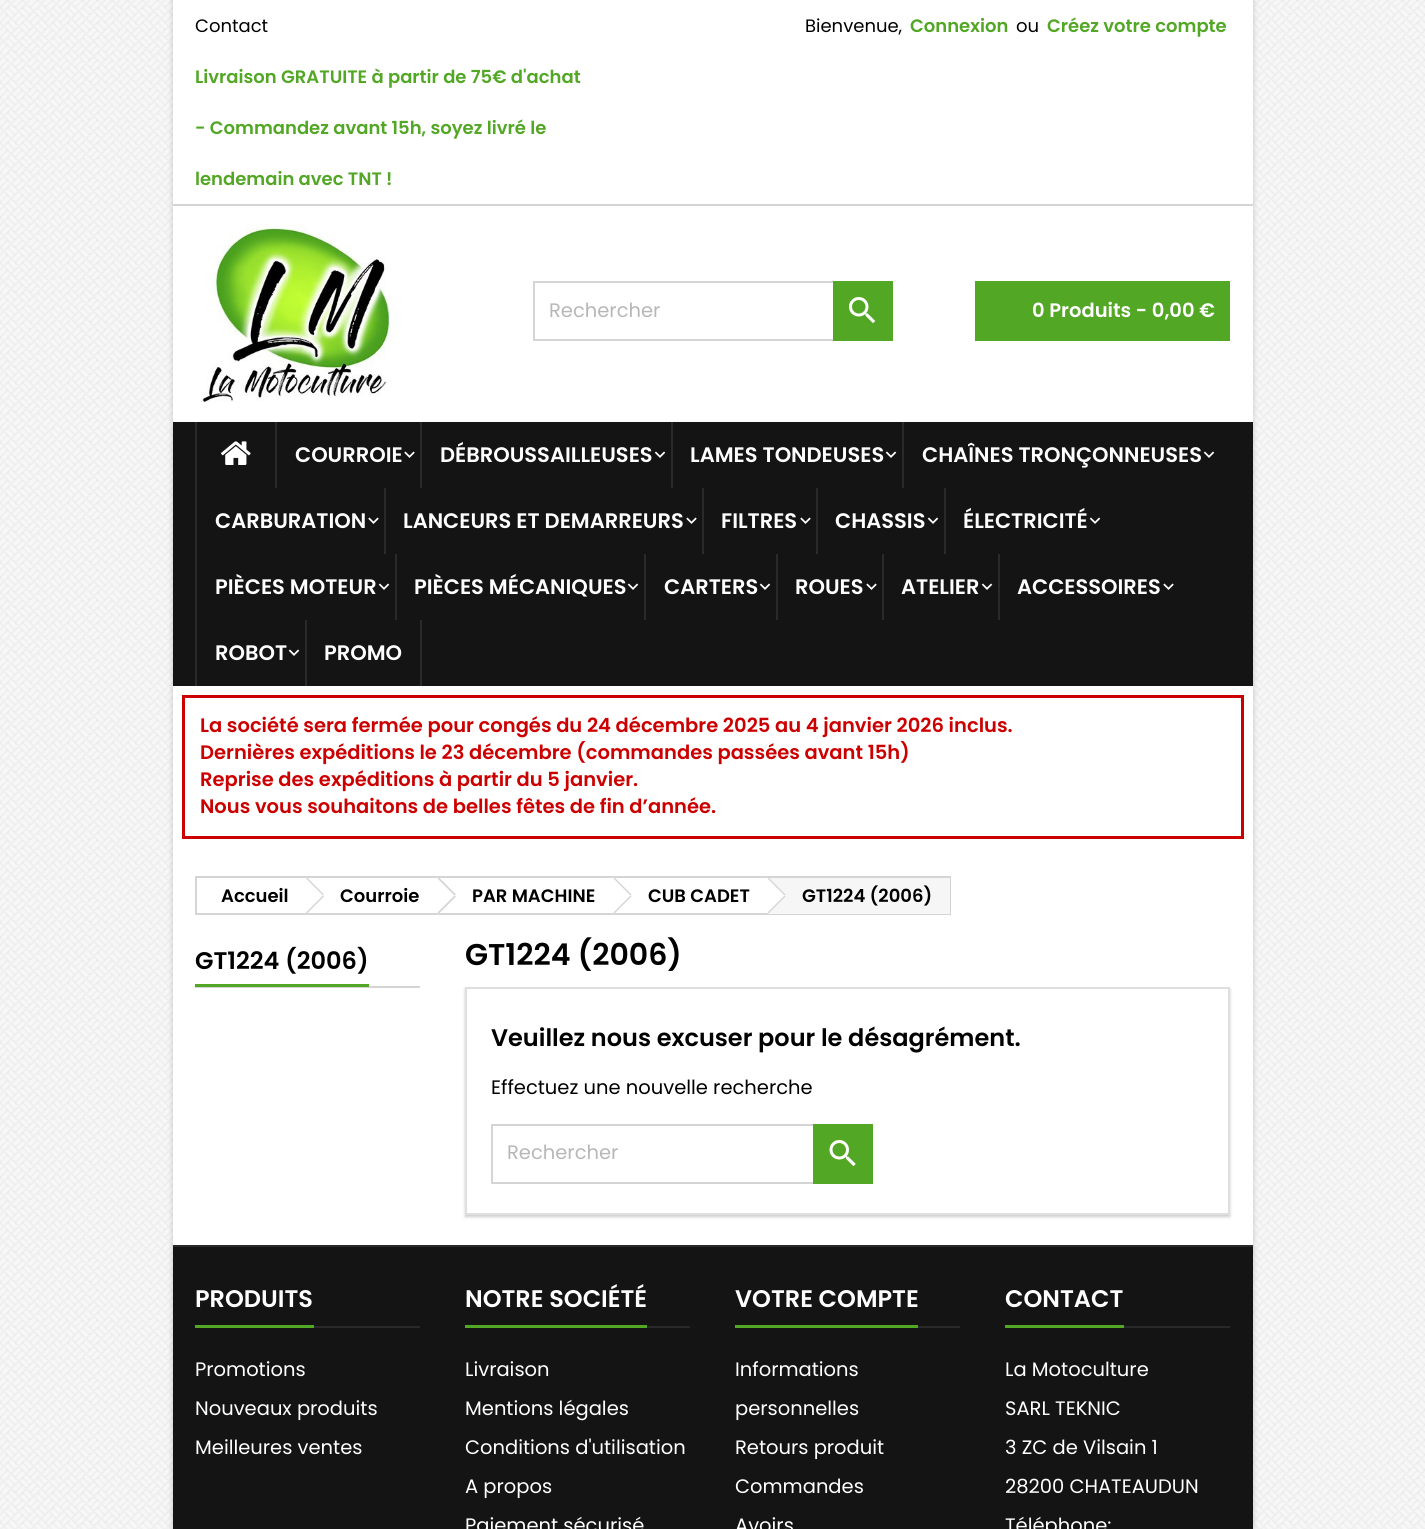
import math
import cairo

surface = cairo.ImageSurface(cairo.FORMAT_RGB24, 1425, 1529)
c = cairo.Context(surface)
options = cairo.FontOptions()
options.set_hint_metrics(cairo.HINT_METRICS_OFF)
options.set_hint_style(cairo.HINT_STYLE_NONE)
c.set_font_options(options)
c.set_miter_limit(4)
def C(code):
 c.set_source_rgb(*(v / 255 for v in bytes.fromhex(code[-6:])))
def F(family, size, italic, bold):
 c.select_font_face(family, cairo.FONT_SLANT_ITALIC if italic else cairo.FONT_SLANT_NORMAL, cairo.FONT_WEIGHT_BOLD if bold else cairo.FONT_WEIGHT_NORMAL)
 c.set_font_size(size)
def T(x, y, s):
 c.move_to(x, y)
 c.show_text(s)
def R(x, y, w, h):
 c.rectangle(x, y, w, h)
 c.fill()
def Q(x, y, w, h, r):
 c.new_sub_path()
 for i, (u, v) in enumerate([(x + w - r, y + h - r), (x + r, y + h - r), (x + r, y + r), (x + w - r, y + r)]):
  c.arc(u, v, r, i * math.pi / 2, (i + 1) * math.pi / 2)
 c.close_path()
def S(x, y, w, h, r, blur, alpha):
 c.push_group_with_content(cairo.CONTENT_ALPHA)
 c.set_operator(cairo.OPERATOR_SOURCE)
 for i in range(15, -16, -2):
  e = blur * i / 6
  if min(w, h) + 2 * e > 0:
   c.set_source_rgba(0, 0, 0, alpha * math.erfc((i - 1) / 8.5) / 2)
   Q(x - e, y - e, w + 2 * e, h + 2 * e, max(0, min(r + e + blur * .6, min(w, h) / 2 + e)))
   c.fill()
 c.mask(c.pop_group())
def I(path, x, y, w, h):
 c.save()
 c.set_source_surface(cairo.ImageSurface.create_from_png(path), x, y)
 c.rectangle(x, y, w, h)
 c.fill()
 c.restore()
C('f7f7f7')
c.paint()
I('1.png',0,0,1425,1529)
C('000000')
S(173,0,1080,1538,0,3,.2)
C('ffffff')
R(173,0,1080,1245)
C('d6d4d4')
R(173,204,1080,2)
F('Poppins',18,0,0)
C('000000')
T(195,32,'Contact')
F('Poppins SemiBold',18,0,0)
C('52a725')
T(195,83,'Livraison GRATUITE à partir de 75€ d\'achat')
T(195,134,'- Commandez avant 15h, soyez livré le')
T(195,185,'lendemain avec TNT !')
F('Poppins',18,0,0)
C('000000')
T(805,32,'Bienvenue,')
F('Poppins SemiBold',18,0,0)
C('52a725')
T(910,32,'Connexion')
F('Poppins',18,0,0)
C('000000')
T(1016,32,'ou')
F('Poppins SemiBold',18,0,0)
C('52a725')
T(1047,32,'Créez votre compte')
I('2.png',201,224,196,178)
c.rectangle(534,282,358,58)
C('d6d4d4')
c.stroke()
F('Poppins',19.5,0,0)
C('b7b7b7')
T(549,317,'Rechercher')
C('52a725')
R(833,281,60,60)
I('3.png',849,297,27,27)
R(975,281,255,60)
F('Poppins SemiBold',19.5,0,0)
C('ffffff')
T(1032,317,'0 Produits - 0,00 €')
C('141414')
R(173,422,1080,264)
C('2b292b')
R(195,422,2,264)
I('4.png',221,441,30,24)
R(275,422,2,66)
F('Poppins SemiBold',21,0,0)
C('ffffff')
T(295,462,'COURROIE')
I('5.png',404,451,11,7)
C('2b292b')
R(420,422,2,66)
C('ffffff')
T(440,462,'DÉBROUSSAILLEUSES')
I('6.png',654,451,12,7)
C('2b292b')
R(671,422,2,66)
C('ffffff')
T(690,462,'LAMES TONDEUSES')
I('6.png',885,451,12,7)
C('2b292b')
R(902,422,2,66)
C('ffffff')
T(922,462,'CHAÎNES TRONÇONNEUSES')
I('6.png',1203,451,12,7)
T(215,528,'CARBURATION')
I('5.png',368,517,11,7)
C('2b292b')
R(384,488,2,66)
C('ffffff')
T(403,528,'LANCEURS ET DEMARREURS')
I('5.png',686,517,11,7)
C('2b292b')
R(702,488,2,66)
C('ffffff')
T(721,528,'FILTRES')
I('5.png',800,517,11,7)
C('2b292b')
R(816,488,2,66)
C('ffffff')
T(835,528,'CHASSIS')
I('6.png',927,517,12,7)
C('2b292b')
R(944,488,2,66)
C('ffffff')
T(963,528,'ÉLECTRICITÉ')
I('6.png',1089,517,12,7)
T(215,594,'PIÈCES MOTEUR')
I('6.png',378,583,12,7)
C('2b292b')
R(395,554,2,66)
C('ffffff')
T(414,594,'PIÈCES MÉCANIQUES')
I('6.png',627,583,12,7)
C('2b292b')
R(644,554,2,66)
C('ffffff')
T(664,594,'CARTERS')
I('6.png',759,583,12,7)
C('2b292b')
R(776,554,2,66)
C('ffffff')
T(795,594,'ROUES')
I('5.png',866,583,11,7)
C('2b292b')
R(882,554,2,66)
C('ffffff')
T(901,594,'ATELIER')
I('6.png',981,583,12,7)
C('2b292b')
R(998,554,2,66)
C('ffffff')
T(1017,594,'ACCESSOIRES')
I('5.png',1163,583,11,7)
T(215,660,'ROBOT')
I('6.png',288,649,12,7)
C('2b292b')
R(420,620,2,66)
R(305,620,2,66)
C('ffffff')
T(324,660,'PROMO')
c.rectangle(183.5,696.5,1059,141)
C('cc0000')
c.set_line_width(3)
c.stroke()
F('Poppins SemiBold',19.5,0,0)
T(200,732,'La société sera fermée pour congés du 24 décembre 2025 au 4 janvier 2026 inclus.')
T(200,759,'Dernières expéditions le 23 décembre (commandes passées avant 15h)')
T(200,786,'Reprise des expéditions à partir du 5 janvier.')
T(200,813,'Nous vous souhaitons de belles fêtes de fin d’année.')
c.rectangle(196,877,754,37)
C('d6d4d4')
c.set_line_width(2)
c.stroke()
F('Poppins SemiBold',18,0,0)
C('000000')
T(221,902,'Accueil')
C('ffffff')
c.new_path()
c.move_to(308,878.5)
c.line_to(323,893.5)
c.curve_to(324,894.5,324,896.5,323,897.5)
c.line_to(308,912.5)
c.curve_to(307,913.5,305,913.5,304,912.5)
c.line_to(289,897.5)
c.curve_to(288,896.5,288,894.5,289,893.5)
c.line_to(304,878.5)
c.curve_to(305,877.5,307,877.5,308,878.5)
c.close_path()
c.fill()
C('d6d4d4')
c.new_path()
c.move_to(307,877.5)
c.line_to(324,894.5)
c.line_to(323,895.5)
c.line_to(306,878.5)
c.close_path()
c.fill()
c.new_path()
c.move_to(323,895.5)
c.line_to(324,896.5)
c.line_to(307,913.5)
c.line_to(306,912.5)
c.close_path()
c.fill()
C('000000')
T(340,902,'Courroie')
C('ffffff')
c.new_path()
c.move_to(440,878.5)
c.line_to(454.5,893.5)
c.curve_to(456,894.5,456,896.5,454.5,897.5)
c.line_to(440,912.5)
c.curve_to(438.5,913.5,437,913.5,435.5,912.5)
c.line_to(421,897.5)
c.curve_to(419.5,896.5,419.5,894.5,421,893.5)
c.line_to(435.5,878.5)
c.curve_to(437,877.5,438.5,877.5,440,878.5)
c.close_path()
c.fill()
C('d6d4d4')
c.new_path()
c.move_to(439,877.5)
c.line_to(456,894.5)
c.line_to(454.5,895.5)
c.line_to(437.5,878.5)
c.close_path()
c.fill()
c.new_path()
c.move_to(454.5,895.5)
c.line_to(456,896.5)
c.line_to(439,913.5)
c.line_to(437.5,912.5)
c.close_path()
c.fill()
C('000000')
T(472,902,'PAR MACHINE')
C('ffffff')
c.new_path()
c.move_to(615.5,878.5)
c.line_to(630.5,893.5)
c.curve_to(631.5,894.5,631.5,896.5,630.5,897.5)
c.line_to(615.5,912.5)
c.curve_to(614.5,913.5,612.5,913.5,611,912.5)
c.line_to(596.5,897.5)
c.curve_to(595,896.5,595,894.5,596.5,893.5)
c.line_to(611,878.5)
c.curve_to(612.5,877.5,614.5,877.5,615.5,878.5)
c.close_path()
c.fill()
C('d6d4d4')
c.new_path()
c.move_to(614.5,877.5)
c.line_to(631.5,894.5)
c.line_to(630.5,895.5)
c.line_to(613.5,878.5)
c.close_path()
c.fill()
c.new_path()
c.move_to(630.5,895.5)
c.line_to(631.5,896.5)
c.line_to(614.5,913.5)
c.line_to(613.5,912.5)
c.close_path()
c.fill()
C('000000')
T(648,902,'CUB CADET')
C('f6f6f6')
R(768,878,182,36)
C('ffffff')
c.new_path()
c.move_to(769.5,878.5)
c.line_to(784.5,893.5)
c.curve_to(785.5,894.5,785.5,896.5,784.5,897.5)
c.line_to(769.5,912.5)
c.curve_to(768.5,913.5,766.5,913.5,765.5,912.5)
c.line_to(750.5,897.5)
c.curve_to(749.5,896.5,749.5,894.5,750.5,893.5)
c.line_to(765.5,878.5)
c.curve_to(766.5,877.5,768.5,877.5,769.5,878.5)
c.close_path()
c.fill()
C('d6d4d4')
c.new_path()
c.move_to(768.5,877.5)
c.line_to(785.5,894.5)
c.line_to(784.5,895.5)
c.line_to(767.5,878.5)
c.close_path()
c.fill()
c.new_path()
c.move_to(784.5,895.5)
c.line_to(785.5,896.5)
c.line_to(768.5,913.5)
c.line_to(767.5,912.5)
c.close_path()
c.fill()
C('000000')
T(802,902,'GT1224 (2006)')
C('d6d4d4')
R(195,986,225,2)
C('52a725')
R(195,984,174,3)
F('Poppins SemiBold',24,0,0)
C('000000')
T(195,969,'GT1224 (2006)')
F('Poppins SemiBold',30,0,0)
T(465,965,'GT1224 (2006)')
c.save()
c.set_fill_rule(cairo.FILL_RULE_EVEN_ODD)
c.new_path()
c.move_to(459,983)
c.line_to(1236,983)
c.line_to(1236,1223)
c.line_to(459,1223)
c.close_path()
c.move_to(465,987)
c.line_to(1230,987)
c.line_to(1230,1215)
c.line_to(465,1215)
c.close_path()
c.clip()
C('000000')
S(465,989,765,228,0,1.5,.2)
c.restore()
c.rectangle(466,988,763,226)
C('dfdfdf')
c.stroke()
F('Poppins SemiBold',24,0,0)
C('000000')
T(491,1046,'Veuillez nous excuser pour le désagrément.')
F('Poppins',19.5,0,0)
T(491,1094,'Effectuez une nouvelle recherche')
c.rectangle(492,1125,380,58)
C('d6d4d4')
c.stroke()
C('b7b7b7')
T(507,1159,'Rechercher')
C('52a725')
R(813,1124,60,60)
I('7.png',829,1140,27,27)
C('141414')
R(173,1247,1080,282)
C('292929')
R(173,1245,1080,2)
R(314,1326,106,2)
C('52a725')
R(195,1325,119,3)
F('Poppins SemiBold',24,0,0)
C('ffffff')
T(195,1307,'PRODUITS')
F('Poppins',19.5,0,0)
T(195,1376,'Promotions')
T(195,1415,'Nouveaux produits')
T(195,1454,'Meilleures ventes')
C('292929')
R(647,1326,43,2)
C('52a725')
R(465,1325,182,3)
F('Poppins SemiBold',24,0,0)
C('ffffff')
T(465,1307,'NOTRE SOCIÉTÉ')
F('Poppins',19.5,0,0)
T(465,1376,'Livraison')
T(465,1415,'Mentions légales')
T(465,1454,'Conditions d\'utilisation')
T(465,1493,'A propos')
T(465,1532,'Paiement sécurisé')
C('292929')
R(918,1326,42,2)
C('52a725')
R(735,1325,183,3)
F('Poppins SemiBold',24,0,0)
C('ffffff')
T(735,1307,'VOTRE COMPTE')
F('Poppins',19.5,0,0)
T(735,1376,'Informations')
T(735,1415,'personnelles')
T(735,1454,'Retours produit')
T(735,1493,'Commandes')
T(735,1532,'Avoirs')
C('292929')
R(1124,1326,106,2)
C('52a725')
R(1005,1325,119,3)
F('Poppins SemiBold',24,0,0)
C('ffffff')
T(1005,1307,'CONTACT')
F('Poppins',19.5,0,0)
T(1005,1376,'La Motoculture')
T(1005,1415,'SARL TEKNIC')
T(1005,1454,'3 ZC de Vilsain 1')
T(1005,1493,'28200 CHATEAUDUN')
T(1005,1532,'Téléphone:')
surface.write_to_png('o.png')
